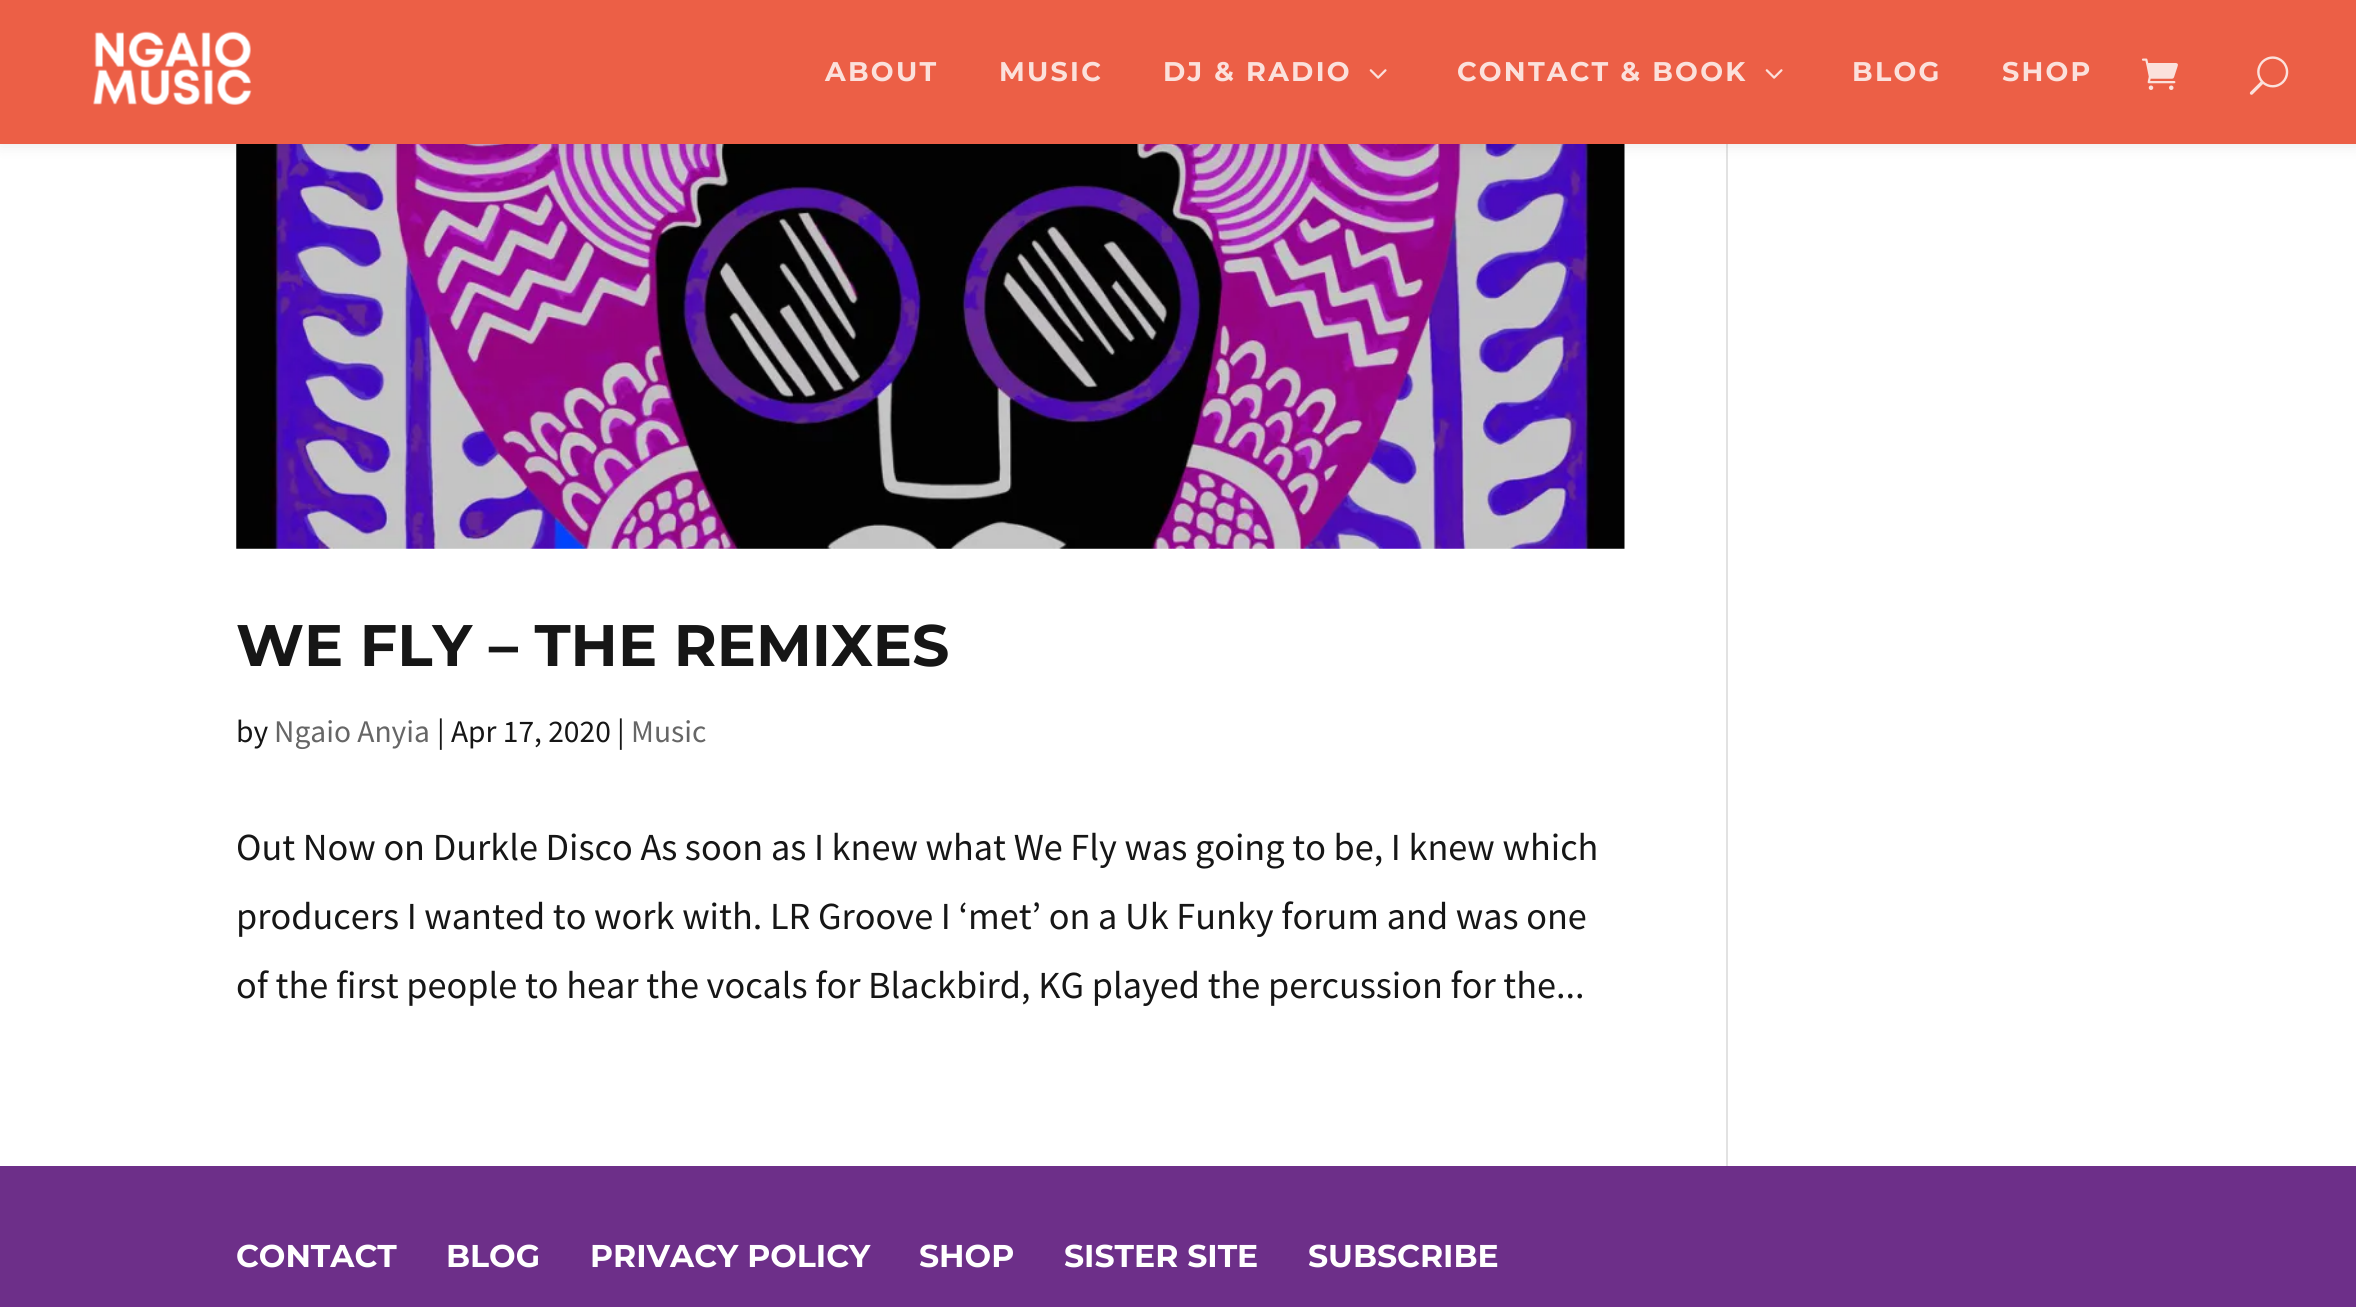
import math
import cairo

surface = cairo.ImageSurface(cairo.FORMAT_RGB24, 2356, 1307)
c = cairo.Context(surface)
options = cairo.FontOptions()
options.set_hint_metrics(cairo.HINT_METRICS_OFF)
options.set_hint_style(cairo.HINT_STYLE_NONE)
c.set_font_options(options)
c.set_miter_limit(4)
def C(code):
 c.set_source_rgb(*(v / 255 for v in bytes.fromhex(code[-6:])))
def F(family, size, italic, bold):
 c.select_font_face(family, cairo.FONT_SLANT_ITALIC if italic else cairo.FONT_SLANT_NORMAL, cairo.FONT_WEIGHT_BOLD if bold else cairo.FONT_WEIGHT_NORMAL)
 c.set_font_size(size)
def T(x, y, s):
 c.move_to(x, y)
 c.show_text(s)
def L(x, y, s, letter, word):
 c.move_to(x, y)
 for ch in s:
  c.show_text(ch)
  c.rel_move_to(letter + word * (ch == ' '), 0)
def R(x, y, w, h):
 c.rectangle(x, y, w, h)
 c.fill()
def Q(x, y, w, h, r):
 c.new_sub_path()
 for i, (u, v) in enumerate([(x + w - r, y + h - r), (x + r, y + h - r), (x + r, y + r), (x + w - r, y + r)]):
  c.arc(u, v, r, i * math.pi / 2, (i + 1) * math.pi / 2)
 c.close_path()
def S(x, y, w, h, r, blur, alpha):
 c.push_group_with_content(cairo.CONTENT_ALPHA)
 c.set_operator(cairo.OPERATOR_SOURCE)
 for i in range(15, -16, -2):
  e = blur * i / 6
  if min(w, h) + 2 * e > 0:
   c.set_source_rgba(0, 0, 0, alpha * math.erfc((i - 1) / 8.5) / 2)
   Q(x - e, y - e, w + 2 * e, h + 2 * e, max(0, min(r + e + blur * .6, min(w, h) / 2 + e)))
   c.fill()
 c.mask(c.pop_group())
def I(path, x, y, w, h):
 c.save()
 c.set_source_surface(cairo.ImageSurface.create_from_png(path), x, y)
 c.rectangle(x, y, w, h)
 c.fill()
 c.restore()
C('ffffff')
c.paint()
I('5.png',236,144,1389,405)
C('e2e2e2')
R(1726,144,2,1022)
C('000000')
S(0,0,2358,144,0,8,.1)
C('ec5f46')
R(0,0,2356,144)
I('1.png',93,31,159,74)
F('Montserrat',27,0,1)
C('fbe1dc')
L(825,81,'ABOUT',2.25,0)
L(999,81,'MUSIC',2.25,0)
L(1163,81,'DJ & RADIO',2.25,0)
I('2.png',1369,69,18,10)
L(1457,81,'CONTACT & BOOK',2.25,0)
I('2.png',1765,69,18,10)
L(1852,81,'BLOG',2.25,0)
L(2002,81,'SHOP',2.25,0)
I('3.png',2141,58,37,32)
I('4.png',2249,56,40,39)
F('Montserrat',58.5,0,1)
C('161616')
T(236,666,'WE FLY – THE REMIXES')
F('Source Sans Pro',31.5,0,0)
T(236,742,'by')
C('666666')
T(274,742,'Ngaio Anyia')
C('161616')
T(437,742,'| Apr 17, 2020 |')
C('666666')
T(631,742,'Music')
F('Source Sans Pro',38.25,0,0)
C('161616')
T(236,860,'Out Now on Durkle Disco As soon as I knew what We Fly was going to be, I knew which')
T(236,929,'producers I wanted to work with. LR Groove I ‘met’ on a Uk Funky forum and was one')
T(236,998,'of the first people to hear the vocals for Blackbird, KG played the percussion for the...')
C('6d2f89')
R(0,1166,2356,141)
F('Montserrat',31.5,0,1)
C('ffffff')
T(236,1267,'CONTACT')
T(446,1267,'BLOG')
T(590,1267,'PRIVACY POLICY')
T(919,1267,'SHOP')
T(1064,1267,'SISTER SITE')
T(1308,1267,'SUBSCRIBE')
surface.write_to_png('o.png')
